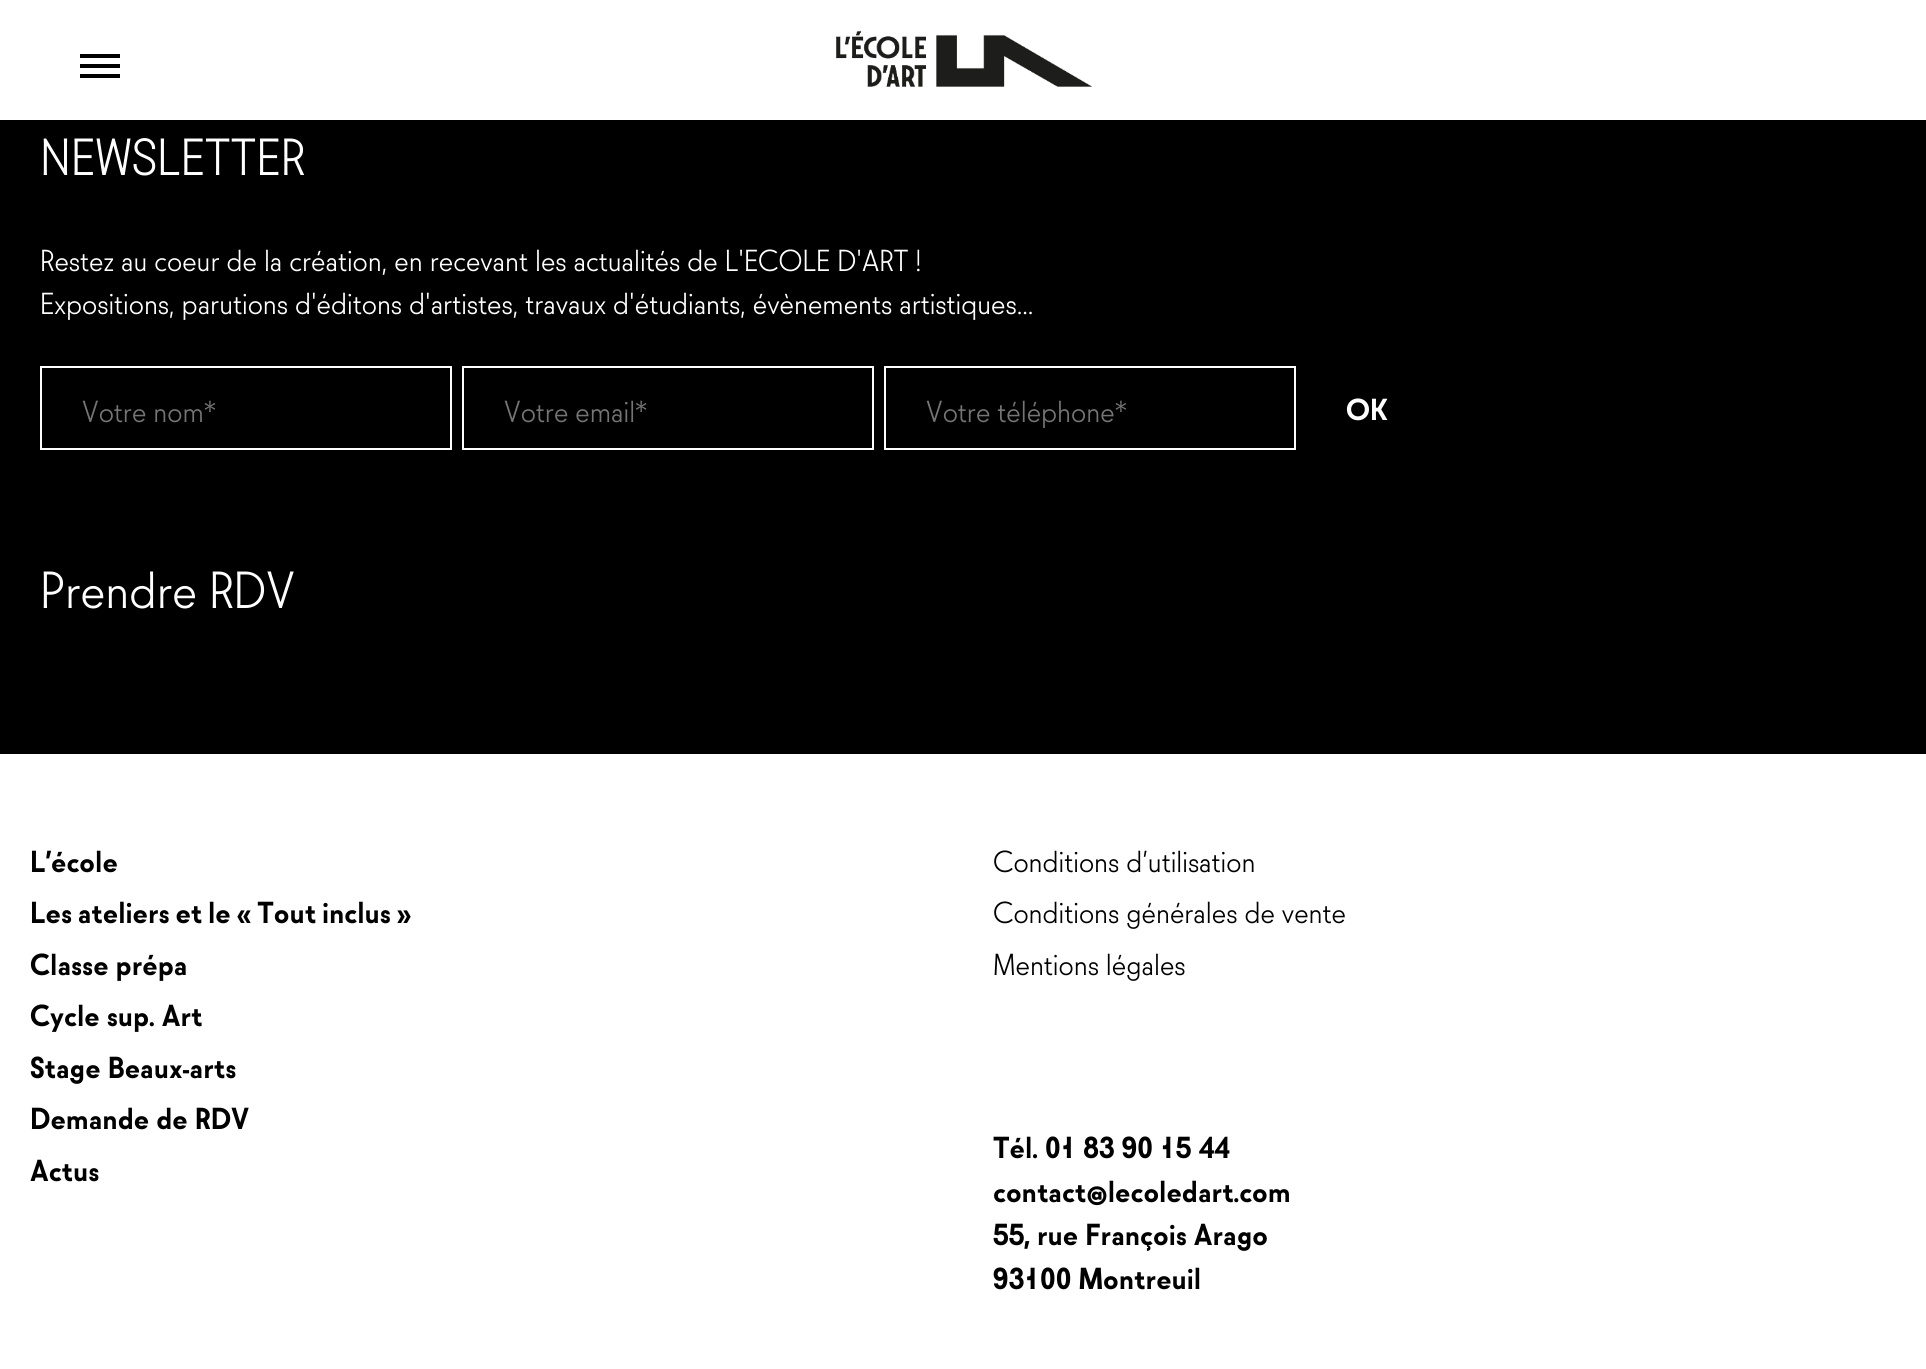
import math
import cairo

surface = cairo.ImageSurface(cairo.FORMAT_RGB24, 1926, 1369)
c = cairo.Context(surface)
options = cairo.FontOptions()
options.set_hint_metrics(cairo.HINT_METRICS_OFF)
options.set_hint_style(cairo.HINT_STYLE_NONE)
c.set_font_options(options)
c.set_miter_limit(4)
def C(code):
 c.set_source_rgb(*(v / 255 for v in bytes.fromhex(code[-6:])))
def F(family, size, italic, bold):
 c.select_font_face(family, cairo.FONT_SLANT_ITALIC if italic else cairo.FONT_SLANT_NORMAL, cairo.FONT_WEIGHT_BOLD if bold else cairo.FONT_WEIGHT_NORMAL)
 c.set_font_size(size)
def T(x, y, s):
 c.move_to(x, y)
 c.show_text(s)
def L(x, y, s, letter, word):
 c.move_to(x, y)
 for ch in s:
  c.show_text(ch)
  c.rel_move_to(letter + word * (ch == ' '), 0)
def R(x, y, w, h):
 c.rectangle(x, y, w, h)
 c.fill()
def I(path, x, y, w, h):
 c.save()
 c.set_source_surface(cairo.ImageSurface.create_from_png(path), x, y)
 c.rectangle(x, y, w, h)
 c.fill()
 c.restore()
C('ffffff')
c.paint()
C('000000')
R(80,64,40,4)
R(80,54,40,4)
R(80,74,40,4)
I('1.png',836,30,256,57)
R(0,120,1926,634)
F('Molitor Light',48,0,0)
C('ffffff')
T(40,175,'NEWSLETTER')
F('Molitor Light',28,0,0)
T(40,271,'Restez au coeur de la création, en recevant les actualités de L\'ECOLE D\'ART !')
T(40,314,'Expositions, parutions d\'éditons d\'artistes, travaux d\'étudiants, évènements artistiques...')
c.rectangle(41,367,410,82)
c.stroke()
C('757575')
T(82,422,'Votre nom*')
c.rectangle(463,367,410,82)
C('ffffff')
c.stroke()
C('757575')
T(504,422,'Votre email*')
c.rectangle(885,367,410,82)
C('ffffff')
c.stroke()
C('757575')
T(926,422,'Votre téléphone*')
F('Molitor',28,0,1)
C('ffffff')
T(1346,420,'OK')
F('Molitor Light',48,0,0)
T(40,608,'Prendre RDV')
F('Molitor',28,0,1)
C('000000')
T(30,872,'L’école')
L(30,923,'Les ateliers et le « Tout inclus »',0,-1.25)
T(30,975,'Classe prépa')
T(30,1026,'Cycle sup. Art')
T(30,1078,'Stage Beaux-arts')
T(30,1129,'Demande de RDV')
T(30,1181,'Actus')
F('Molitor Light',28,0,0)
T(993,872,'Conditions d’utilisation')
T(993,923,'Conditions générales de vente')
T(993,975,'Mentions légales')
F('Molitor',28,0,1)
T(993,1158,'Tél. 01 83 90 15 44')
T(993,1202,'contact@lecoledart.com')
T(993,1245,'55, rue François Arago')
T(993,1289,'93100 Montreuil')
surface.write_to_png('o.png')
